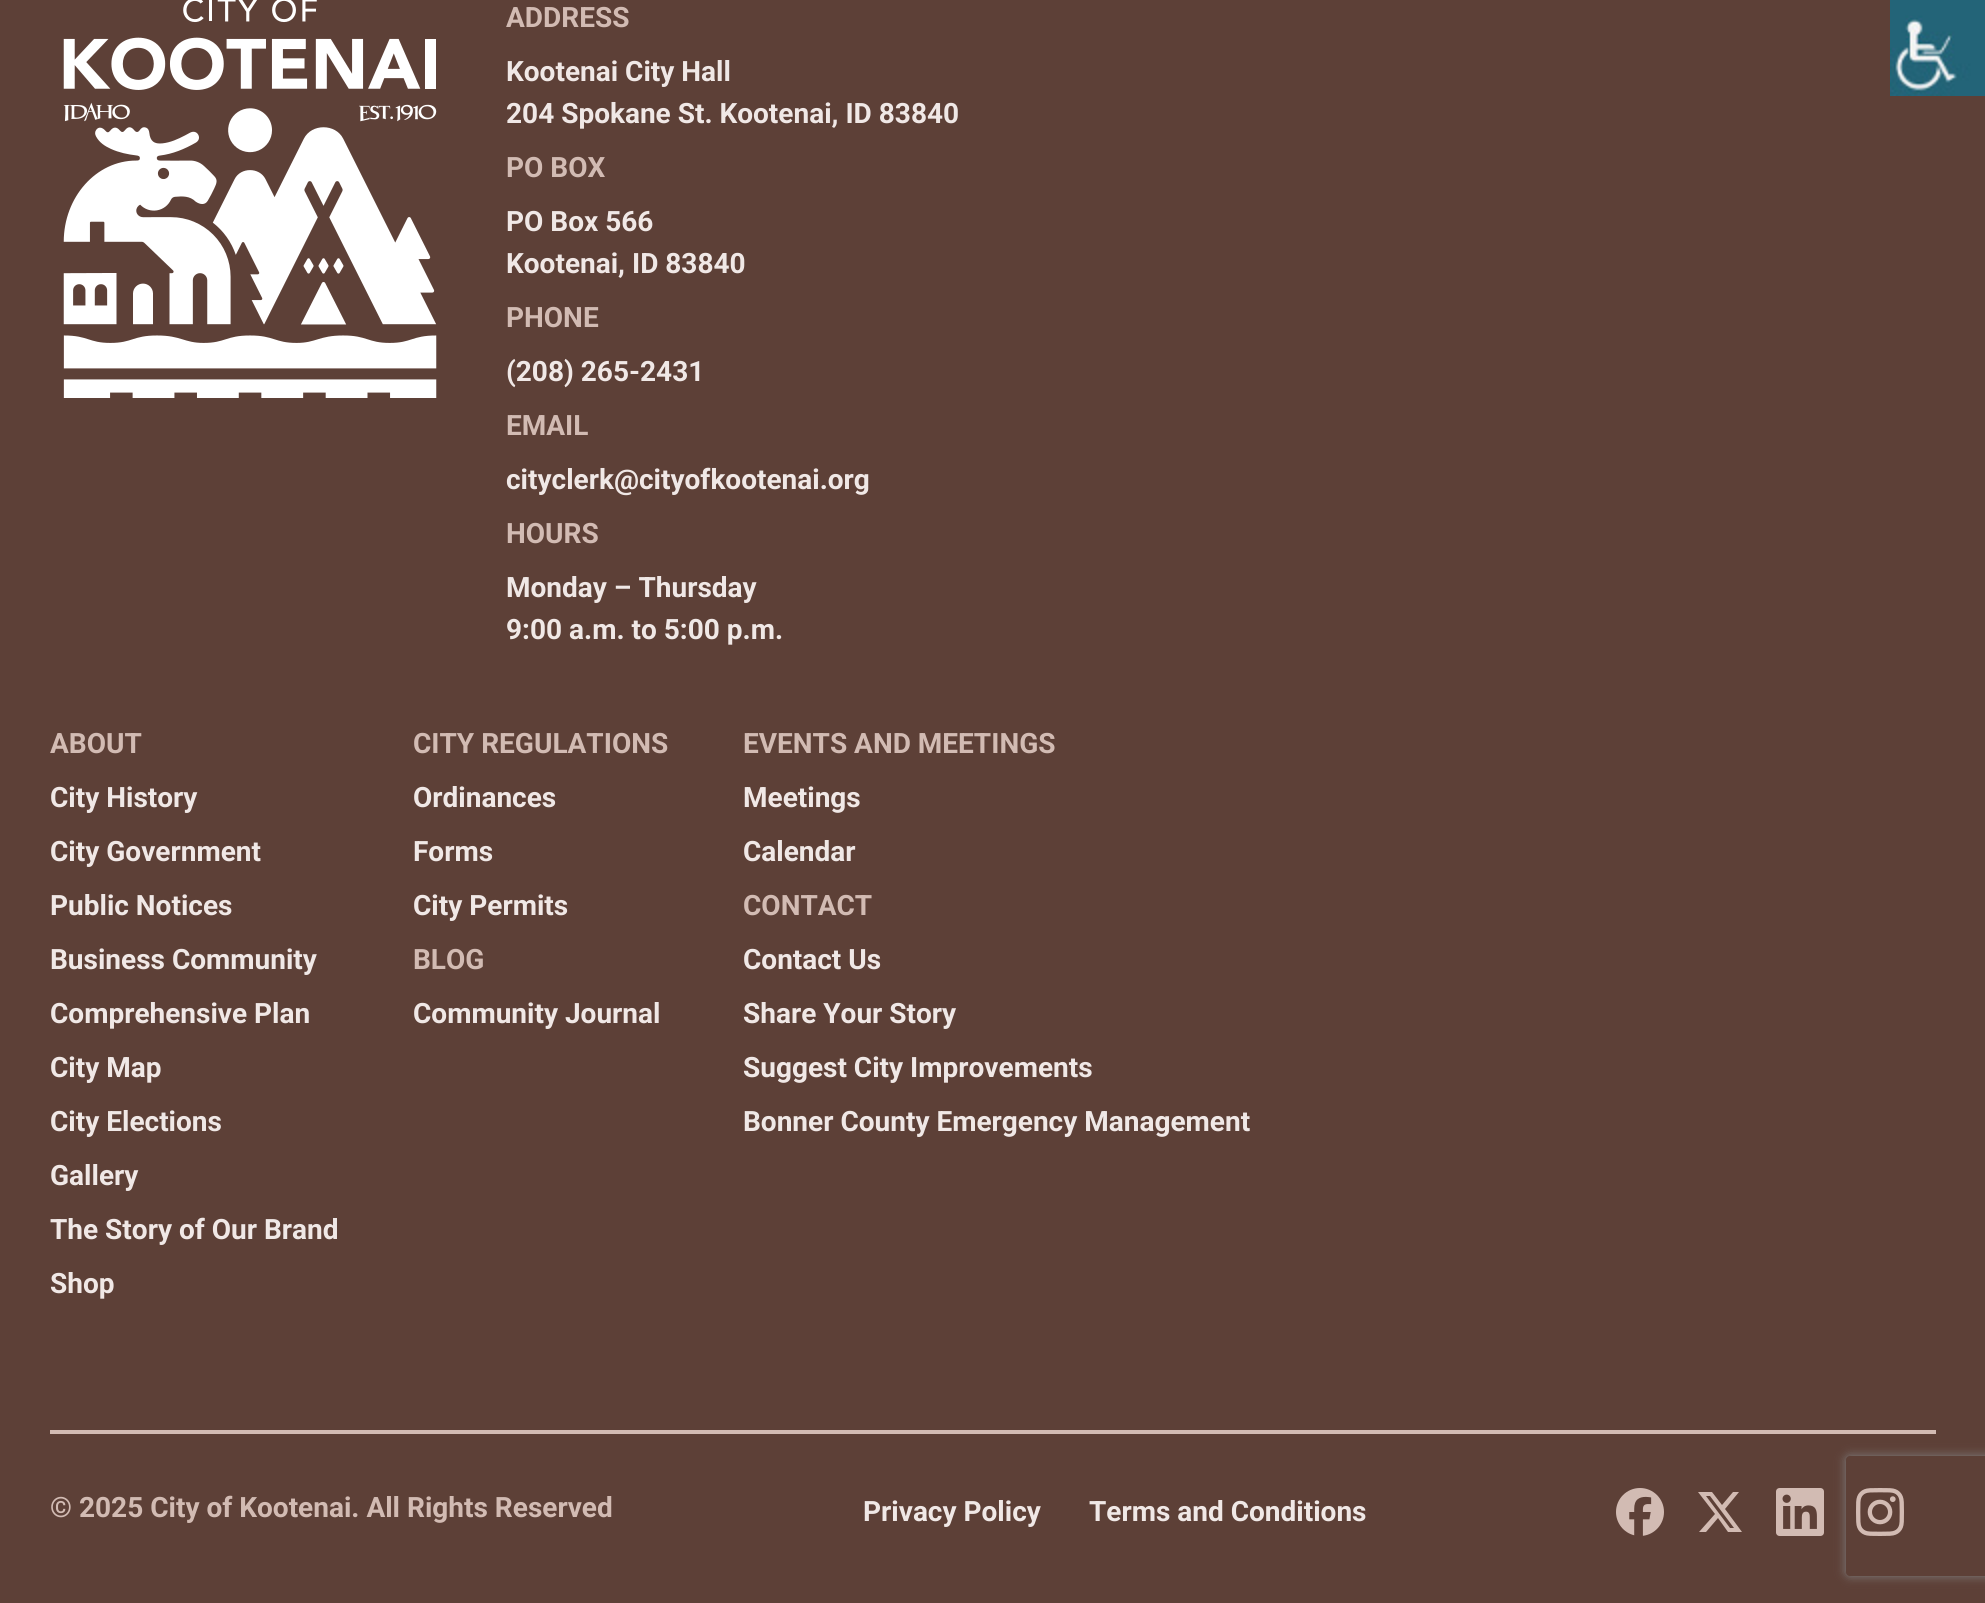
import math
import cairo

surface = cairo.ImageSurface(cairo.FORMAT_RGB24, 1985, 1603)
c = cairo.Context(surface)
options = cairo.FontOptions()
options.set_hint_metrics(cairo.HINT_METRICS_OFF)
options.set_hint_style(cairo.HINT_STYLE_NONE)
c.set_font_options(options)
c.set_miter_limit(4)
def C(code):
 c.set_source_rgb(*(v / 255 for v in bytes.fromhex(code[-6:])))
def F(family, size, italic, bold):
 c.select_font_face(family, cairo.FONT_SLANT_ITALIC if italic else cairo.FONT_SLANT_NORMAL, cairo.FONT_WEIGHT_BOLD if bold else cairo.FONT_WEIGHT_NORMAL)
 c.set_font_size(size)
def T(x, y, s):
 c.move_to(x, y)
 c.show_text(s)
def R(x, y, w, h):
 c.rectangle(x, y, w, h)
 c.fill()
def Q(x, y, w, h, r):
 c.new_sub_path()
 for i, (u, v) in enumerate([(x + w - r, y + h - r), (x + r, y + h - r), (x + r, y + r), (x + w - r, y + r)]):
  c.arc(u, v, r, i * math.pi / 2, (i + 1) * math.pi / 2)
 c.close_path()
def S(x, y, w, h, r, blur, alpha):
 c.push_group_with_content(cairo.CONTENT_ALPHA)
 c.set_operator(cairo.OPERATOR_SOURCE)
 for i in range(15, -16, -2):
  e = blur * i / 6
  if min(w, h) + 2 * e > 0:
   c.set_source_rgba(0, 0, 0, alpha * math.erfc((i - 1) / 8.5) / 2)
   Q(x - e, y - e, w + 2 * e, h + 2 * e, max(0, min(r + e + blur * .6, min(w, h) / 2 + e)))
   c.fill()
 c.mask(c.pop_group())
def I(path, x, y, w, h):
 c.save()
 c.set_source_surface(cairo.ImageSurface.create_from_png(path), x, y)
 c.rectangle(x, y, w, h)
 c.fill()
 c.restore()
C('5d4037')
c.paint()
C('d2bbb3')
R(50,1430,1886,4)
I('1.png',63,0,374,398)
F('Roboto',28,0,1)
T(506,27,'ADDRESS')
C('f0e8e6')
T(506,81,'Kootenai City Hall')
T(506,123,'204 Spokane St. Kootenai, ID 83840')
C('d2bbb3')
T(506,177,'PO BOX')
C('f0e8e6')
T(506,231,'PO Box 566')
T(506,273,'Kootenai, ID 83840')
C('d2bbb3')
T(506,327,'PHONE')
C('f0e8e6')
T(506,381,'(208) 265-2431')
C('d2bbb3')
T(506,435,'EMAIL')
C('f0e8e6')
T(506,489,'cityclerk@cityofkootenai.org')
C('d2bbb3')
T(506,543,'HOURS')
C('f0e8e6')
T(506,597,'Monday – Thursday')
T(506,639,'9:00 a.m. to 5:00 p.m.')
C('d2bbb3')
T(50,753,'ABOUT')
C('f0e8e6')
T(50,807,'City History')
T(50,861,'City Government')
T(50,915,'Public Notices')
T(50,969,'Business Community')
T(50,1023,'Comprehensive Plan')
T(50,1077,'City Map')
T(50,1131,'City Elections')
T(50,1185,'Gallery')
T(50,1239,'The Story of Our Brand')
T(50,1293,'Shop')
C('d2bbb3')
T(413,753,'CITY REGULATIONS')
C('f0e8e6')
T(413,807,'Ordinances')
T(413,861,'Forms')
T(413,915,'City Permits')
C('d2bbb3')
T(413,969,'BLOG')
C('f0e8e6')
T(413,1023,'Community Journal')
C('d2bbb3')
T(743,753,'EVENTS AND MEETINGS')
C('f0e8e6')
T(743,807,'Meetings')
T(743,861,'Calendar')
C('d2bbb3')
T(743,915,'CONTACT')
C('f0e8e6')
T(743,969,'Contact Us')
T(743,1023,'Share Your Story')
T(743,1077,'Suggest City Improvements')
T(743,1131,'Bonner County Emergency Management')
C('d2bbb3')
T(50,1517,'© 2025 City of Kootenai. All Rights Reserved')
C('f0e8e6')
T(863,1521,'Privacy Policy')
T(1089,1521,'Terms and Conditions')
I('2.png',1616,1488,48,48)
C('d2bbb3')
c.new_path()
c.move_to(1733,1492)
c.line_to(1739,1492)
c.line_to(1725,1509)
c.line_to(1742,1532)
c.line_to(1728,1532)
c.line_to(1718,1518)
c.line_to(1706,1532)
c.line_to(1699,1532)
c.line_to(1715,1514)
c.line_to(1698,1492)
c.line_to(1712,1492)
c.line_to(1722,1505)
c.close_path()
c.move_to(1730,1528)
c.line_to(1734,1528)
c.line_to(1710,1496)
c.line_to(1706,1496)
c.close_path()
c.fill()
I('3.png',1776,1488,48,48)
I('4.png',1856,1488,48,48)
I('5.png',1890,0,95,96)
c.save()
c.set_fill_rule(cairo.FILL_RULE_EVEN_ODD)
c.new_path()
c.move_to(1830,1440)
c.line_to(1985,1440)
c.line_to(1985,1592)
c.line_to(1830,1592)
c.close_path()
c.move_to(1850,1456)
c.line_to(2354,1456)
c.curve_to(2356,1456,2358,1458,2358,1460)
c.line_to(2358,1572)
c.curve_to(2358,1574,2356,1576,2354,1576)
c.line_to(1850,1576)
c.curve_to(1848,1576,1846,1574,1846,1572)
c.line_to(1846,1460)
c.curve_to(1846,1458,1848,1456,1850,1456)
c.close_path()
c.clip()
C('808080')
S(1846,1456,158,120,4,5,1)
c.restore()
surface.write_to_png('o.png')
